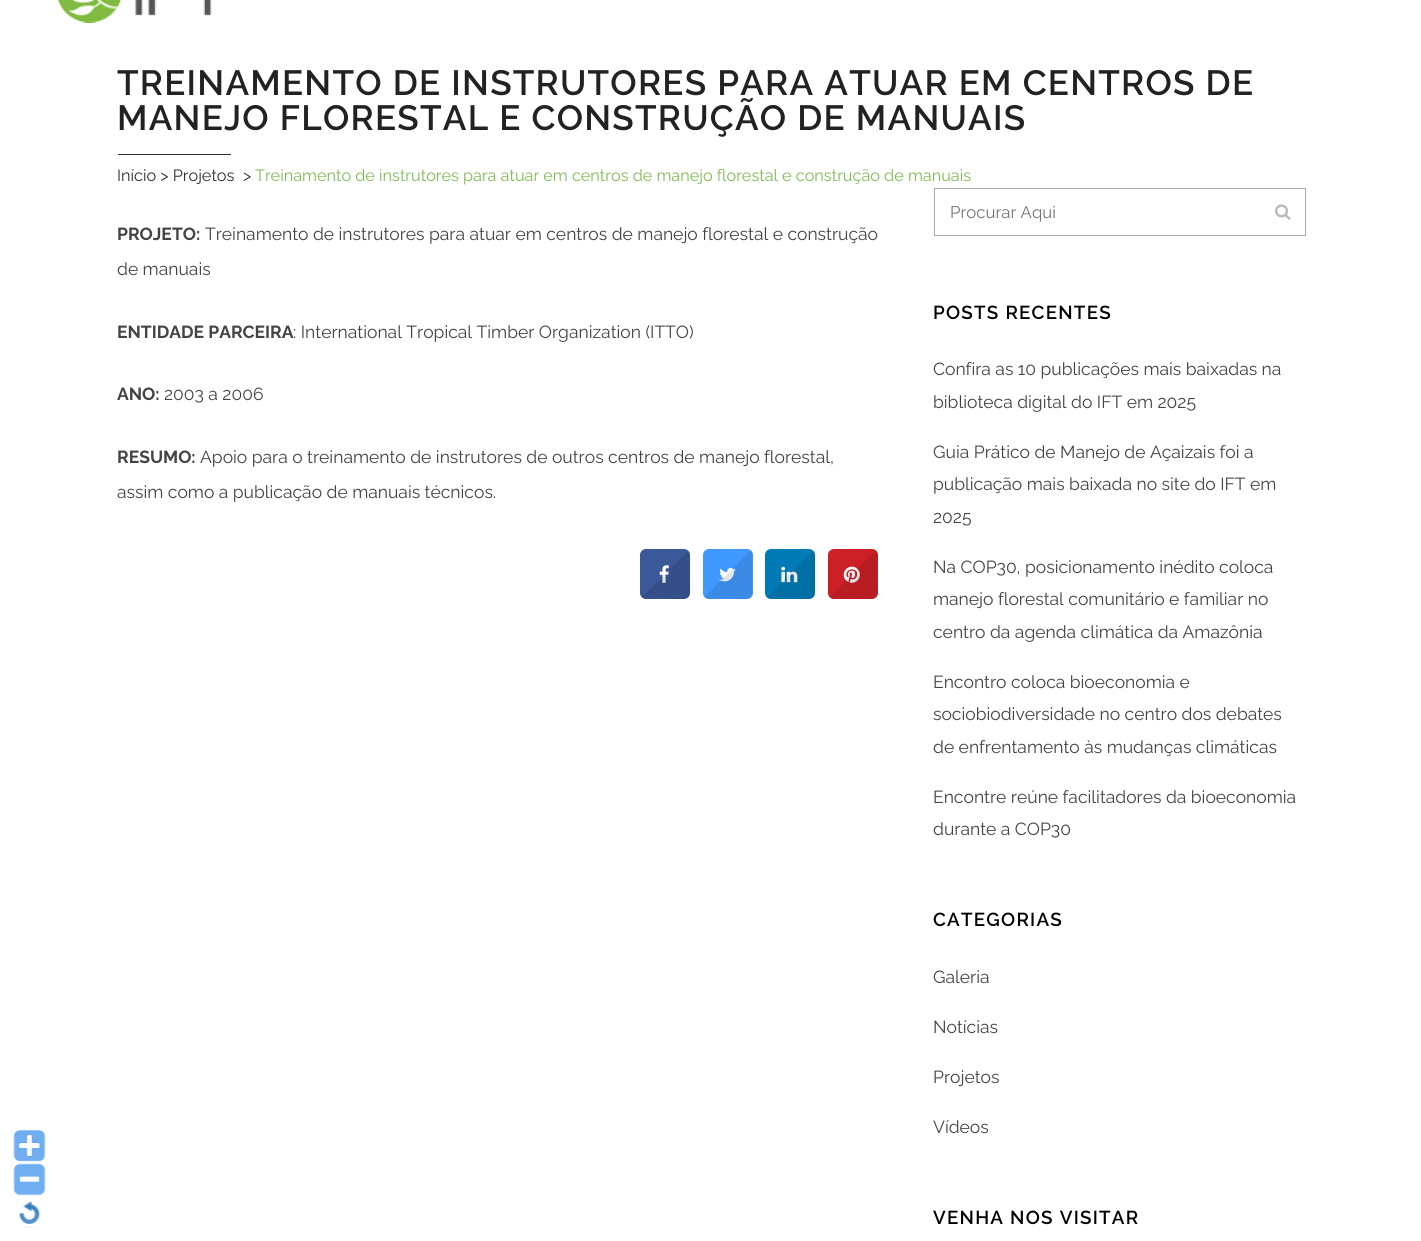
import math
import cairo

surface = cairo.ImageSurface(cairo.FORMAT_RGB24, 1421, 1241)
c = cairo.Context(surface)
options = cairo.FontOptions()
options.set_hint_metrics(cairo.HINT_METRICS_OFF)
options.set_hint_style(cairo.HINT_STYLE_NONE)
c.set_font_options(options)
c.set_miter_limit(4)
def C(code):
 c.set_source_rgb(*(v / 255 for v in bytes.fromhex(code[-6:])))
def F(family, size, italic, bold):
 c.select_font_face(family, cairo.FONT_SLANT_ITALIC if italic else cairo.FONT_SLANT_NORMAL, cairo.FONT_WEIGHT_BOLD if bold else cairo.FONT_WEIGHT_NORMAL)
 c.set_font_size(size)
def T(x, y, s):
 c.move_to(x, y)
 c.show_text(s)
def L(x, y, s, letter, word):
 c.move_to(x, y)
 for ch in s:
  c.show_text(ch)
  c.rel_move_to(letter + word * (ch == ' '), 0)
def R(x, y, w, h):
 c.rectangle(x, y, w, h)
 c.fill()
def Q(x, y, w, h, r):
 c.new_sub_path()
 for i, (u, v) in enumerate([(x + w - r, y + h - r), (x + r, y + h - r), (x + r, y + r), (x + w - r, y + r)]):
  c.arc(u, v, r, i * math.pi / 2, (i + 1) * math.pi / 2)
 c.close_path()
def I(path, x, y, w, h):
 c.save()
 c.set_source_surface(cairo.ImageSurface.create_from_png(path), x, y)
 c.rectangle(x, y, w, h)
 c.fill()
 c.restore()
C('ffffff')
c.paint()
I('1.png',13,1130,33,32)
I('2.png',13,1163,33,33)
I('3.png',19,1201,21,27)
I('4.png',57,0,155,23)
F('Raleway SemiBold',35,0,0)
C('222222')
L(117,95,'TREINAMENTO DE INSTRUTORES PARA ATUAR EM CENTROS DE',1.25,0)
L(117,130,'MANEJO FLORESTAL E CONSTRUÇÃO DE MANUAIS',1.25,0)
C('303030')
R(118,154,113,1)
F('Raleway',16.25,0,0)
T(117,181,'Início > Projetos')
T(243,181,'>')
C('7fbb55')
T(255,181,'Treinamento de instrutores para atuar em centros de manejo florestal e construção de manuais')
F('Raleway',17.5,0,1)
C('444444')
T(117,240,'PROJETO:')
F('Raleway',17.5,0,0)
T(205,240,'Treinamento de instrutores para atuar em centros de manejo florestal e construção')
T(117,275,'de manuais')
F('Raleway',17.5,0,1)
T(117,338,'ENTIDADE PARCEIRA')
F('Raleway',17.5,0,0)
T(293,338,': International Tropical Timber Organization (ITTO)')
F('Raleway',17.5,0,1)
T(117,400,'ANO:')
F('Raleway',17.5,0,0)
T(164,400,'2003 a 2006')
F('Raleway',17.5,0,1)
T(117,463,'RESUMO:')
F('Raleway',17.5,0,0)
T(200,463,'Apoio para o treinamento de instrutores de outros centros de manejo florestal,')
T(117,498,'assim como a publicação de manuais técnicos.')
C('3b5998')
Q(640,549,50,50,6)
c.fill()
c.new_path()
c.move_to(687.5,551.5)
c.curve_to(689.5,554,689,558.5,689,561)
c.line_to(689,574)
c.curve_to(689,601.5,693,597.5,665,597.5)
c.line_to(652.5,597.5)
c.curve_to(650,597.5,645,598.5,642.5,596)
c.set_source_rgba(0,0,0,0.1)
c.set_line_width(2.5)
c.stroke()
I('5.png',659,565,10,18)
c.new_path()
c.move_to(687,552)
c.curve_to(688,553,688,554,688,555)
c.line_to(688,592)
c.curve_to(688,594,686,596,684,596)
c.line_to(647,596)
c.curve_to(646,596,645,596,644,595)
c.close_path()
c.fill()
C('4099ff')
Q(703,549,50,50,6)
c.fill()
c.new_path()
c.move_to(750,551.5)
c.curve_to(752,554,751,558.5,751,561)
c.line_to(751,574)
c.curve_to(751,601.5,755.5,597.5,727.5,597.5)
c.line_to(715,597.5)
c.curve_to(712.5,597.5,707.5,598.5,705,596)
c.set_source_rgba(0,0,0,0.1)
c.stroke()
I('6.png',719,568,17,14)
c.new_path()
c.move_to(707,595)
c.line_to(749,552)
c.curve_to(750,553,750,554,750,555)
c.line_to(750,592)
c.curve_to(750,594,748,596,746,596)
c.line_to(709,596)
c.close_path()
c.fill()
C('007bb6')
Q(765,549,50,50,6)
c.fill()
c.new_path()
c.move_to(812.5,551.5)
c.curve_to(814.5,554,814,558.5,814,561)
c.line_to(814,574)
c.curve_to(814,601.5,818,597.5,790,597.5)
c.line_to(777.5,597.5)
c.curve_to(775,597.5,770,598.5,767.5,596)
c.set_source_rgba(0,0,0,0.1)
c.stroke()
I('7.png',781,566,17,17)
c.new_path()
c.move_to(812,552)
c.curve_to(813,553,813,554,813,555)
c.line_to(813,592)
c.curve_to(813,594,811,596,809,596)
c.line_to(772,596)
c.curve_to(771,596,770,596,769,595)
c.close_path()
c.fill()
C('cb2027')
Q(828,549,50,50,6)
c.fill()
c.new_path()
c.move_to(875,551.5)
c.curve_to(877,554,876,558.5,876,561)
c.line_to(876,574)
c.curve_to(876,601.5,880.5,597.5,852.5,597.5)
c.line_to(840,597.5)
c.curve_to(837.5,597.5,832.5,598.5,830,596)
c.set_source_rgba(0,0,0,0.1)
c.stroke()
I('8.png',843,566,17,17)
c.new_path()
c.move_to(832,595)
c.line_to(874,552)
c.curve_to(875,553,875,554,875,555)
c.line_to(875,592)
c.curve_to(875,594,873,596,871,596)
c.line_to(834,596)
c.close_path()
c.fill()
c.rectangle(934.5,188.5,371,47)
C('adadad')
c.set_line_width(1)
c.stroke()
F('Raleway',16.75,0,0)
C('757575')
T(950,218,'Procurar Aqui')
I('9.png',1275,204,16,16)
F('Raleway SemiBold',18.75,0,0)
C('000000')
L(933,319,'POSTS RECENTES',1.25,0)
F('Raleway',17.5,0,0)
C('444444')
T(933,375,'Confira as 10 publicações mais baixadas na')
T(933,408,'biblioteca digital do IFT em 2025')
T(933,458,'Guia Prático de Manejo de Açaizais foi a')
T(933,490,'publicação mais baixada no site do IFT em')
T(933,523,'2025')
T(933,573,'Na COP30, posicionamento inédito coloca')
T(933,605,'manejo florestal comunitário e familiar no')
T(933,638,'centro da agenda climática da Amazônia')
T(933,688,'Encontro coloca bioeconomia e')
T(933,720,'sociobiodiversidade no centro dos debates')
T(933,753,'de enfrentamento às mudanças climáticas')
T(933,803,'Encontre reúne facilitadores da bioeconomia')
T(933,835,'durante a COP30')
F('Raleway SemiBold',18.75,0,0)
C('000000')
L(933,926,'CATEGORIAS',1.25,0)
F('Raleway',17.5,0,0)
C('444444')
T(933,983,'Galeria')
T(933,1033,'Notícias')
T(933,1083,'Projetos')
T(933,1133,'Vídeos')
F('Raleway SemiBold',18.75,0,0)
C('000000')
L(933,1224,'VENHA NOS VISITAR',1.25,0)
surface.write_to_png('o.png')
